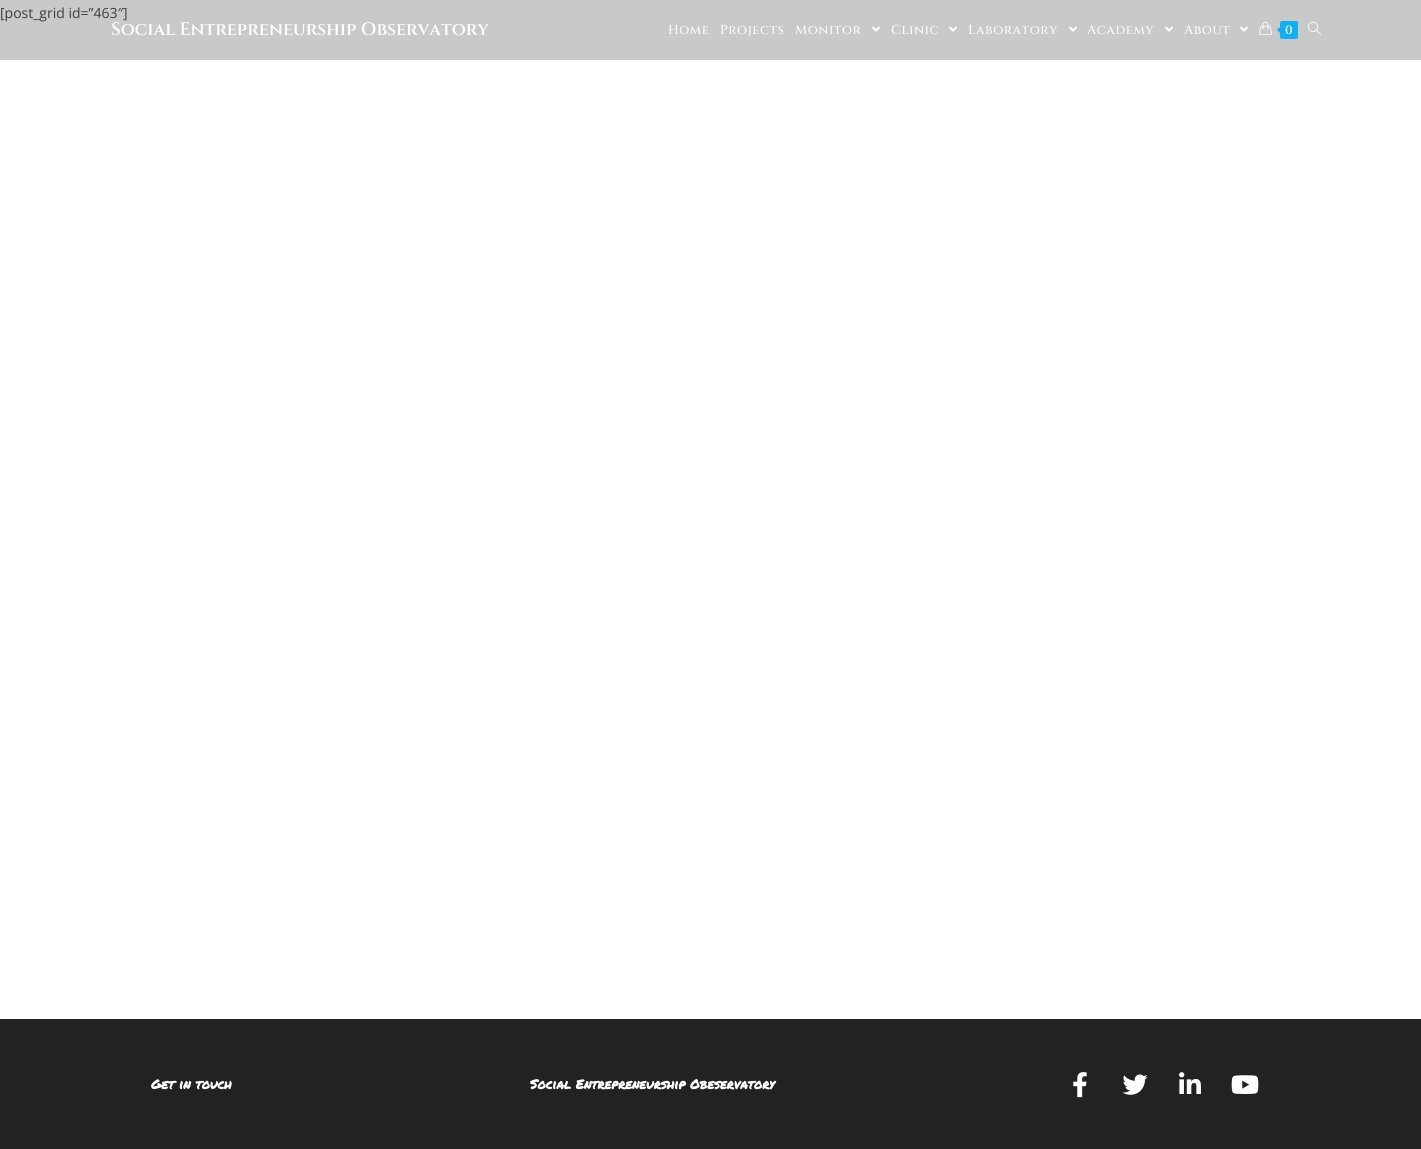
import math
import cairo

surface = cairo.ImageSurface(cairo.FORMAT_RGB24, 1421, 1149)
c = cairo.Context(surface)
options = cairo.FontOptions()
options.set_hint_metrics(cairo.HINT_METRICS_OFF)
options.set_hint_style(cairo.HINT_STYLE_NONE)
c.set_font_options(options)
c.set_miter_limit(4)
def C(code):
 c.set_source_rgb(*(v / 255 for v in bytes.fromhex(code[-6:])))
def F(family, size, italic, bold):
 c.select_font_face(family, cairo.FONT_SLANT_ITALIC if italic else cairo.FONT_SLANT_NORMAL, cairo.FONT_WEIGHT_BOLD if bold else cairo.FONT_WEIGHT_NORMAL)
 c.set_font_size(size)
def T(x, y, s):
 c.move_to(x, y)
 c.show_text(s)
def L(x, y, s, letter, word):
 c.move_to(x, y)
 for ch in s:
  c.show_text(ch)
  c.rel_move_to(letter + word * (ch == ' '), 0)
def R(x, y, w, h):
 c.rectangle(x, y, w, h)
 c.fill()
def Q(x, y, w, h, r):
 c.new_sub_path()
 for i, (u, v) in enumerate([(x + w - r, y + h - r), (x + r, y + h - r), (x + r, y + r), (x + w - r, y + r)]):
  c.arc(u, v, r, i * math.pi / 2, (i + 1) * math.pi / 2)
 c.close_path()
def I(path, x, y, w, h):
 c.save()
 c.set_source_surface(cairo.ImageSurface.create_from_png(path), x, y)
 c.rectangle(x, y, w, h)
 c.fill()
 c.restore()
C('ffffff')
c.paint()
F('Open Sans',14,0,0)
C('4a4a4a')
T(0,18,'[post_grid id=”463″]')
c.set_source_rgba(0.078,0.078,0.078,0.23)
R(0,0,1421,60)
F('Cinzel SemiBold',18,0,0)
C('ffffff')
T(111,35,'Social Entrepreneurship Observatory')
F('Cinzel Medium',13,0,0)
L(668,34,'Home',.5,0)
L(720,34,'Projects',.5,0)
L(795,34,'Monitor',.5,0)
I('1.png',872,26,8,6)
L(891,34,'Clinic',.5,0)
I('1.png',949,26,8,6)
L(968,34,'Laboratory',.5,0)
I('1.png',1069,26,8,6)
L(1087,34,'Academy',.5,0)
I('1.png',1165,26,8,6)
L(1184,34,'About',.5,0)
I('1.png',1240,26,8,6)
I('2.png',1259,21,13,14)
C('13aff0')
Q(1280,21,18,18,2)
c.fill()
c.new_path()
c.move_to(1282,25)
c.line_to(1282,35)
c.line_to(1277,30)
c.close_path()
c.fill()
F('Cinzel SemiBold',12,0,0)
C('ffffff')
T(1285,34,'0')
I('3.png',1308,21,13,14)
C('222222')
R(0,1019,1421,130)
F('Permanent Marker',13,0,1)
C('ffffff')
T(151,1089,'Get in touch')
T(530,1089,'Social Entrepreneurship Obeservatory')
I('4.png',1073,1072,14,26)
I('5.png',1122,1074,26,21)
I('6.png',1179,1072,22,22)
I('7.png',1231,1075,28,19)
surface.write_to_png('o.png')
